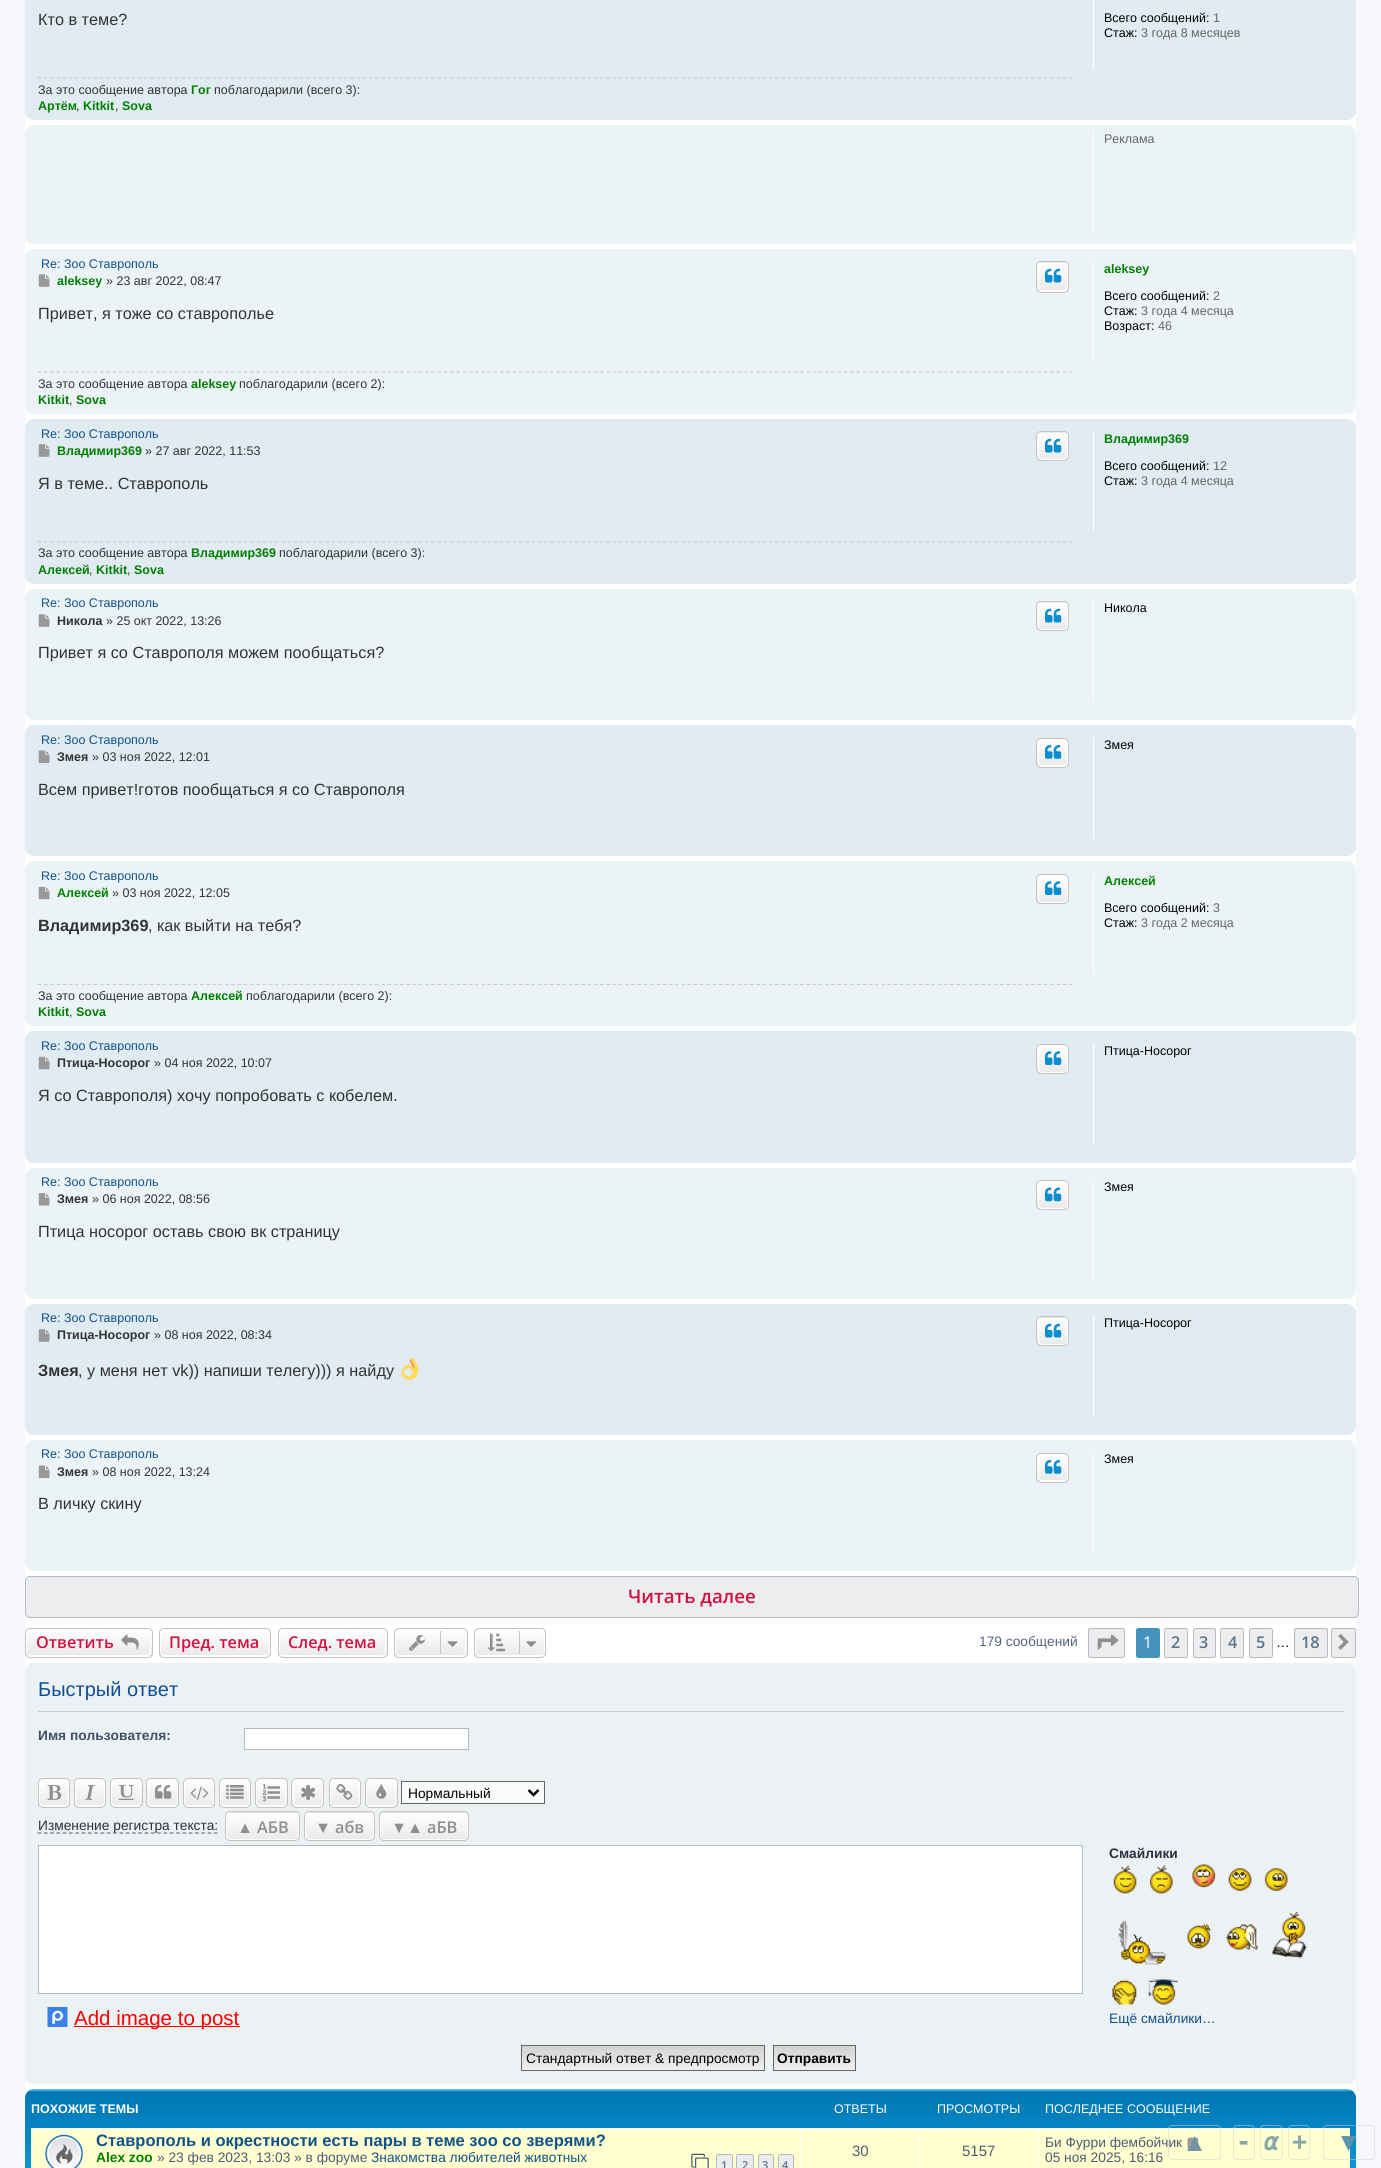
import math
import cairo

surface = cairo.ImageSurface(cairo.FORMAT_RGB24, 1381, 2168)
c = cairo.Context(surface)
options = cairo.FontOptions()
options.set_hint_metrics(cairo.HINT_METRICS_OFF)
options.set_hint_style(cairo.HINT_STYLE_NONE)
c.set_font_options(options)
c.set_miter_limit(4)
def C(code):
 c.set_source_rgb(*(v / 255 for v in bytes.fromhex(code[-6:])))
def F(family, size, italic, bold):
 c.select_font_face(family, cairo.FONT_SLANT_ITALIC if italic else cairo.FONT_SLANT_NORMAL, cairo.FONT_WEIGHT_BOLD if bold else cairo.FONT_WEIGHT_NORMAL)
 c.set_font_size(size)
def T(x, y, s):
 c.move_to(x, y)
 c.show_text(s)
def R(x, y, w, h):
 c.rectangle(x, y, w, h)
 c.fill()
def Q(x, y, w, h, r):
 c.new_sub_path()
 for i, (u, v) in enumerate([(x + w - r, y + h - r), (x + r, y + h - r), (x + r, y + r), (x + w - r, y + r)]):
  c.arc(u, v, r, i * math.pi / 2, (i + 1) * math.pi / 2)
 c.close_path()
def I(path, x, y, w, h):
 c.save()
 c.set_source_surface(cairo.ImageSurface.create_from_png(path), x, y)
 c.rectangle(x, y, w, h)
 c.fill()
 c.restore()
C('f5f7fa')
c.paint()
C('ffffff')
R(25,111,1331,1987)
C('e1ebf2')
Q(25,-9,1331,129,9)
c.fill()
F('Liberation Sans',16.25,0,0)
C('333333')
T(38,25,'Кто в теме?')
c.new_path()
c.move_to(37.5,78)
c.line_to(1072.5,78)
C('cccccc')
c.set_line_width(1.2)
c.set_dash([3.75,2.5])
c.stroke()
F('Liberation Sans',12.5,0,0)
C('333333')
T(38,94,'За это сообщение автора')
F('Liberation Sans',12.5,0,1)
C('008000')
T(191,94,'Гог')
F('Liberation Sans',12.5,0,0)
C('333333')
T(214,94,'поблагодарили (всего 3):')
F('Liberation Sans',12.5,0,1)
C('008000')
T(38,110,'Артём')
F('Liberation Sans',12.5,0,0)
C('333333')
T(76,110,',')
F('Liberation Sans',12.5,0,1)
C('008000')
T(83,110,'Kitkit')
F('Liberation Sans',12.5,0,0)
C('333333')
T(115,110,',')
F('Liberation Sans',12.5,0,1)
C('008000')
T(122,110,'Sova')
C('ffffff')
R(1093,0,1,69)
F('Liberation Sans',12.5,0,0)
C('000000')
T(1104,22,'Всего сообщений:')
C('666666')
T(1213,22,'1')
C('000000')
T(1104,37,'Стаж:')
C('666666')
T(1141,37,'3 года 8 месяцев')
C('ecf3f7')
Q(25,125,1331,119,9)
c.fill()
C('ffffff')
R(1093,131,1,100)
C('666666')
T(1104,143,'Реклама')
C('ecf3f7')
Q(25,249,1331,165,9)
c.fill()
C('105289')
T(41,268,'Re: Зоо Ставрополь')
c.save()
Q(1036,261,33,32,5)
c.clip()
gradient = cairo.LinearGradient(1053,234,1053,263)
gradient.add_color_stop_rgba(0,1,1,1,1)
gradient.add_color_stop_rgba(1,0.914,0.914,0.914,1)
c.set_source(gradient)
R(1036,261,33,2)
gradient = cairo.LinearGradient(1053,263,1053,291)
gradient.add_color_stop_rgba(0,1,1,1,1)
gradient.add_color_stop_rgba(1,0.914,0.914,0.914,1)
c.set_source(gradient)
R(1036,263,33,28)
gradient = cairo.LinearGradient(1053,291,1053,320)
gradient.add_color_stop_rgba(0,1,1,1,1)
gradient.add_color_stop_rgba(1,0.914,0.914,0.914,1)
c.set_source(gradient)
R(1036,291,33,2)
c.restore()
Q(1038.5,263.5,29,27,3.5)
C('ffffff')
c.set_line_width(1)
c.set_dash([])
c.stroke()
Q(1036.5,261.5,32,31,4.5)
C('c7c3bf')
c.stroke()
I('1.png',1045,268,17,15)
I('2.png',38,274,12,13)
F('Liberation Sans',12.5,0,1)
C('008000')
T(57,285,'aleksey')
F('Liberation Sans',12.5,0,0)
C('333333')
T(106,285,'» 23 авг 2022, 08:47')
F('Liberation Sans',16.25,0,0)
T(38,319,'Привет, я тоже со ставрополье')
c.new_path()
c.move_to(37.5,372)
c.line_to(1072.5,372)
C('cccccc')
c.set_line_width(1.2)
c.set_dash([3.75,2.5])
c.stroke()
F('Liberation Sans',12.5,0,0)
C('333333')
T(38,388,'За это сообщение автора')
F('Liberation Sans',12.5,0,1)
C('008000')
T(191,388,'aleksey')
F('Liberation Sans',12.5,0,0)
C('333333')
T(239,388,'поблагодарили (всего 2):')
F('Liberation Sans',12.5,0,1)
C('008000')
T(38,404,'Kitkit')
F('Liberation Sans',12.5,0,0)
C('333333')
T(69,404,',')
F('Liberation Sans',12.5,0,1)
C('008000')
T(76,404,'Sova')
C('ffffff')
R(1093,261,1,100)
C('008000')
T(1104,273,'aleksey')
F('Liberation Sans',12.5,0,0)
C('000000')
T(1104,300,'Всего сообщений:')
C('666666')
T(1213,300,'2')
C('000000')
T(1104,315,'Стаж:')
C('666666')
T(1141,315,'3 года 4 месяца')
C('000000')
T(1104,330,'Возраст:')
C('666666')
T(1158,330,'46')
C('e1ebf2')
Q(25,419,1331,165,9)
c.fill()
C('105289')
T(41,438,'Re: Зоо Ставрополь')
c.save()
Q(1036,431,33,30,5)
c.clip()
gradient = cairo.LinearGradient(1053,405,1053,433)
gradient.add_color_stop_rgba(0,1,1,1,1)
gradient.add_color_stop_rgba(1,0.914,0.914,0.914,1)
c.set_source(gradient)
R(1036,431,33,2)
gradient = cairo.LinearGradient(1053,433,1053,460)
gradient.add_color_stop_rgba(0,1,1,1,1)
gradient.add_color_stop_rgba(1,0.914,0.914,0.914,1)
c.set_source(gradient)
R(1036,433,33,27)
c.restore()
Q(1038.5,433.5,29,26,3.5)
C('ffffff')
c.set_line_width(1)
c.set_dash([])
c.stroke()
Q(1036.5,431.5,32,29,4.5)
C('c7c3bf')
c.stroke()
I('3.png',1045,438,17,15)
I('4.png',38,444,12,13)
F('Liberation Sans',12.5,0,1)
C('008000')
T(57,455,'Владимир369')
F('Liberation Sans',12.5,0,0)
C('333333')
T(145,455,'» 27 авг 2022, 11:53')
F('Liberation Sans',16.25,0,0)
T(38,489,'Я в теме.. Ставрополь')
c.new_path()
c.move_to(37.5,542)
c.line_to(1072.5,542)
C('cccccc')
c.set_line_width(1.2)
c.set_dash([3.75,2.5])
c.stroke()
F('Liberation Sans',12.5,0,0)
C('333333')
T(38,557,'За это сообщение автора')
F('Liberation Sans',12.5,0,1)
C('008000')
T(191,557,'Владимир369')
F('Liberation Sans',12.5,0,0)
C('333333')
T(279,557,'поблагодарили (всего 3):')
F('Liberation Sans',12.5,0,1)
C('008000')
T(38,574,'Алексей')
F('Liberation Sans',12.5,0,0)
C('333333')
T(89,574,',')
F('Liberation Sans',12.5,0,1)
C('008000')
T(96,574,'Kitkit')
F('Liberation Sans',12.5,0,0)
C('333333')
T(127,574,',')
F('Liberation Sans',12.5,0,1)
C('008000')
T(134,574,'Sova')
C('ffffff')
R(1093,431,1,100)
C('008000')
T(1104,443,'Владимир369')
F('Liberation Sans',12.5,0,0)
C('000000')
T(1104,470,'Всего сообщений:')
C('666666')
T(1213,470,'12')
C('000000')
T(1104,485,'Стаж:')
C('666666')
T(1141,485,'3 года 4 месяца')
C('ecf3f7')
Q(25,589,1331,131,9)
c.fill()
C('105289')
T(41,607,'Re: Зоо Ставрополь')
c.save()
Q(1036,601,33,30,5)
c.clip()
gradient = cairo.LinearGradient(1053,575,1053,603)
gradient.add_color_stop_rgba(0,1,1,1,1)
gradient.add_color_stop_rgba(1,0.914,0.914,0.914,1)
c.set_source(gradient)
R(1036,601,33,2)
gradient = cairo.LinearGradient(1053,603,1053,630)
gradient.add_color_stop_rgba(0,1,1,1,1)
gradient.add_color_stop_rgba(1,0.914,0.914,0.914,1)
c.set_source(gradient)
R(1036,603,33,27)
c.restore()
Q(1038.5,603.5,29,26,3.5)
C('ffffff')
c.set_line_width(1)
c.set_dash([])
c.stroke()
Q(1036.5,601.5,32,29,4.5)
C('c7c3bf')
c.stroke()
I('3.png',1045,608,17,15)
I('2.png',38,614,12,13)
F('Liberation Sans',12.5,0,1)
C('333333')
T(57,625,'Никола')
F('Liberation Sans',12.5,0,0)
T(106,625,'» 25 окт 2022, 13:26')
F('Liberation Sans',16.25,0,0)
T(38,658,'Привет я со Ставрополя можем пообщаться?')
C('ffffff')
R(1093,601,1,100)
F('Liberation Sans',12.5,0,0)
C('000000')
T(1104,612,'Никола')
C('e1ebf2')
Q(25,725,1331,131,9)
c.fill()
C('105289')
T(41,744,'Re: Зоо Ставрополь')
c.save()
Q(1036,738,33,30,5)
c.clip()
gradient = cairo.LinearGradient(1053,739,1053,766)
gradient.add_color_stop_rgba(0,1,1,1,1)
gradient.add_color_stop_rgba(1,0.914,0.914,0.914,1)
c.set_source(gradient)
R(1036,739,33,27)
gradient = cairo.LinearGradient(1053,766,1053,794)
gradient.add_color_stop_rgba(0,1,1,1,1)
gradient.add_color_stop_rgba(1,0.914,0.914,0.914,1)
c.set_source(gradient)
R(1036,766,33,2)
c.restore()
Q(1038.5,739.5,29,26,3.5)
C('ffffff')
c.stroke()
Q(1036.5,738.5,32,29,4.5)
C('c7c3bf')
c.stroke()
I('5.png',1045,745,17,14)
I('6.png',38,750,12,14)
F('Liberation Sans',12.5,0,1)
C('333333')
T(57,761,'Змея')
F('Liberation Sans',12.5,0,0)
T(92,761,'» 03 ноя 2022, 12:01')
F('Liberation Sans',16.25,0,0)
T(38,795,'Всем привет!готов пообщаться я со Ставрополя')
C('ffffff')
R(1093,738,1,100)
F('Liberation Sans',12.5,0,0)
C('000000')
T(1104,749,'Змея')
C('ecf3f7')
Q(25,861,1331,165,9)
c.fill()
C('105289')
T(41,880,'Re: Зоо Ставрополь')
c.save()
Q(1036,874,33,30,5)
c.clip()
gradient = cairo.LinearGradient(1053,875,1053,903)
gradient.add_color_stop_rgba(0,1,1,1,1)
gradient.add_color_stop_rgba(1,0.914,0.914,0.914,1)
c.set_source(gradient)
R(1036,875,33,28)
c.restore()
Q(1038.5,875.5,29,27,3.5)
C('ffffff')
c.stroke()
Q(1036.5,874.5,32,29,4.5)
C('c7c3bf')
c.stroke()
I('7.png',1045,881,17,14)
I('8.png',38,886,12,14)
F('Liberation Sans',12.5,0,1)
C('008000')
T(57,897,'Алексей')
F('Liberation Sans',12.5,0,0)
C('333333')
T(112,897,'» 03 ноя 2022, 12:05')
F('Liberation Sans',16.25,0,1)
T(38,931,'Владимир369')
F('Liberation Sans',16.25,0,0)
T(148,931,', как выйти на тебя?')
c.new_path()
c.move_to(37.5,984.5)
c.line_to(1072.5,984.5)
C('cccccc')
c.set_line_width(1.2)
c.set_dash([3.75,2.5])
c.stroke()
F('Liberation Sans',12.5,0,0)
C('333333')
T(38,1000,'За это сообщение автора')
F('Liberation Sans',12.5,0,1)
C('008000')
T(191,1000,'Алексей')
F('Liberation Sans',12.5,0,0)
C('333333')
T(246,1000,'поблагодарили (всего 2):')
F('Liberation Sans',12.5,0,1)
C('008000')
T(38,1016,'Kitkit')
F('Liberation Sans',12.5,0,0)
C('333333')
T(69,1016,',')
F('Liberation Sans',12.5,0,1)
C('008000')
T(76,1016,'Sova')
C('ffffff')
R(1093,874,1,100)
C('008000')
T(1104,885,'Алексей')
F('Liberation Sans',12.5,0,0)
C('000000')
T(1104,912,'Всего сообщений:')
C('666666')
T(1213,912,'3')
C('000000')
T(1104,927,'Стаж:')
C('666666')
T(1141,927,'3 года 2 месяца')
C('e1ebf2')
Q(25,1031,1331,132,9)
c.fill()
C('105289')
T(41,1050,'Re: Зоо Ставрополь')
c.save()
Q(1036,1044,33,30,5)
c.clip()
gradient = cairo.LinearGradient(1053,1045,1053,1073)
gradient.add_color_stop_rgba(0,1,1,1,1)
gradient.add_color_stop_rgba(1,0.914,0.914,0.914,1)
c.set_source(gradient)
R(1036,1045,33,28)
c.restore()
Q(1038.5,1045.5,29,27,3.5)
C('ffffff')
c.set_line_width(1)
c.set_dash([])
c.stroke()
Q(1036.5,1044.5,32,29,4.5)
C('c7c3bf')
c.stroke()
I('7.png',1045,1051,17,14)
I('9.png',38,1056,12,14)
F('Liberation Sans',12.5,0,1)
C('333333')
T(57,1067,'Птица-Носорог')
F('Liberation Sans',12.5,0,0)
T(154,1067,'» 04 ноя 2022, 10:07')
F('Liberation Sans',16.25,0,0)
T(38,1101,'Я со Ставрополя) хочу попробовать с кобелем.')
C('ffffff')
R(1093,1044,1,100)
F('Liberation Sans',12.5,0,0)
C('000000')
T(1104,1055,'Птица-Носорог')
C('ecf3f7')
Q(25,1168,1331,131,9)
c.fill()
C('105289')
T(41,1186,'Re: Зоо Ставрополь')
c.save()
Q(1036,1180,33,30,5)
c.clip()
gradient = cairo.LinearGradient(1053,1181,1053,1209)
gradient.add_color_stop_rgba(0,1,1,1,1)
gradient.add_color_stop_rgba(1,0.914,0.914,0.914,1)
c.set_source(gradient)
R(1036,1181,33,28)
c.restore()
Q(1038.5,1181.5,29,27,3.5)
C('ffffff')
c.stroke()
Q(1036.5,1180.5,32,29,4.5)
C('c7c3bf')
c.stroke()
I('10.png',1045,1187,17,15)
I('11.png',38,1193,12,13)
F('Liberation Sans',12.5,0,1)
C('333333')
T(57,1203,'Змея')
F('Liberation Sans',12.5,0,0)
T(92,1203,'» 06 ноя 2022, 08:56')
F('Liberation Sans',16.25,0,0)
T(38,1237,'Птица носорог оставь свою вк страницу')
C('ffffff')
R(1093,1180,1,100)
F('Liberation Sans',12.5,0,0)
C('000000')
T(1104,1191,'Змея')
C('e1ebf2')
Q(25,1304,1331,131,9)
c.fill()
C('105289')
T(41,1322,'Re: Зоо Ставрополь')
c.save()
Q(1036,1316,33,30,5)
c.clip()
gradient = cairo.LinearGradient(1053,1290,1053,1318)
gradient.add_color_stop_rgba(0,1,1,1,1)
gradient.add_color_stop_rgba(1,0.914,0.914,0.914,1)
c.set_source(gradient)
R(1036,1316,33,2)
gradient = cairo.LinearGradient(1053,1318,1053,1345)
gradient.add_color_stop_rgba(0,1,1,1,1)
gradient.add_color_stop_rgba(1,0.914,0.914,0.914,1)
c.set_source(gradient)
R(1036,1318,33,27)
c.restore()
Q(1038.5,1318.5,29,26,3.5)
C('ffffff')
c.stroke()
Q(1036.5,1316.5,32,29,4.5)
C('c7c3bf')
c.stroke()
I('3.png',1045,1323,17,15)
I('4.png',38,1329,12,13)
F('Liberation Sans',12.5,0,1)
C('333333')
T(57,1339,'Птица-Носорог')
F('Liberation Sans',12.5,0,0)
T(154,1339,'» 08 ноя 2022, 08:34')
F('Liberation Sans',16.25,0,1)
T(38,1376,'Змея')
F('Liberation Sans',16.25,0,0)
T(78,1376,', у меня нет vk)) напиши телегу))) я найду')
I('12.png',401,1358,18,22)
C('ffffff')
R(1093,1316,1,100)
F('Liberation Sans',12.5,0,0)
C('000000')
T(1104,1327,'Птица-Носорог')
C('ecf3f7')
Q(25,1440,1331,131,9)
c.fill()
C('105289')
T(41,1458,'Re: Зоо Ставрополь')
c.save()
Q(1036,1453,33,30,5)
c.clip()
gradient = cairo.LinearGradient(1053,1454,1053,1481)
gradient.add_color_stop_rgba(0,1,1,1,1)
gradient.add_color_stop_rgba(1,0.914,0.914,0.914,1)
c.set_source(gradient)
R(1036,1454,33,27)
gradient = cairo.LinearGradient(1053,1481,1053,1509)
gradient.add_color_stop_rgba(0,1,1,1,1)
gradient.add_color_stop_rgba(1,0.914,0.914,0.914,1)
c.set_source(gradient)
R(1036,1481,33,2)
c.restore()
Q(1038.5,1454.5,29,26,3.5)
C('ffffff')
c.stroke()
Q(1036.5,1453.5,32,29,4.5)
C('c7c3bf')
c.stroke()
I('5.png',1045,1460,17,14)
I('13.png',38,1465,12,14)
F('Liberation Sans',12.5,0,1)
C('333333')
T(57,1476,'Змея')
F('Liberation Sans',12.5,0,0)
T(92,1476,'» 08 ноя 2022, 13:24')
F('Liberation Sans',16.25,0,0)
T(38,1509,'В личку скину')
C('ffffff')
R(1093,1453,1,100)
F('Liberation Sans',12.5,0,0)
C('000000')
T(1104,1463,'Змея')
C('ecedee')
Q(25.5,1576.5,1333,41,4.5)
c.fill_preserve()
C('b4bac0')
c.stroke()
F('Open Sans SemiBold',18.75,0,0)
C('d31141')
T(628,1603,'Читать далее')
c.save()
Q(25,1628,128,30,5)
c.clip()
gradient = cairo.LinearGradient(89,1629,89,1656)
gradient.add_color_stop_rgba(0,1,1,1,1)
gradient.add_color_stop_rgba(1,0.914,0.914,0.914,1)
c.set_source(gradient)
R(25,1629,128,27)
c.restore()
Q(26.5,1629.5,124,26,3.5)
C('ffffff')
c.stroke()
Q(25.5,1628.5,127,29,4.5)
C('c7c3bf')
c.stroke()
F('Open Sans SemiBold',16.25,0,0)
C('d31141')
T(36,1648,'Ответить')
I('14.png',121,1634,18,16)
c.save()
Q(159,1628,112,30,5)
c.clip()
gradient = cairo.LinearGradient(215,1629,215,1656)
gradient.add_color_stop_rgba(0,1,1,1,1)
gradient.add_color_stop_rgba(1,0.914,0.914,0.914,1)
c.set_source(gradient)
R(159,1629,112,27)
c.restore()
Q(160.5,1629.5,109,26,3.5)
C('ffffff')
c.stroke()
Q(159.5,1628.5,111,29,4.5)
C('c7c3bf')
c.stroke()
C('d31141')
T(169,1648,'Пред. тема')
c.save()
Q(278,1628,110,30,5)
c.clip()
gradient = cairo.LinearGradient(333,1629,333,1656)
gradient.add_color_stop_rgba(0,1,1,1,1)
gradient.add_color_stop_rgba(1,0.914,0.914,0.914,1)
c.set_source(gradient)
R(278,1629,110,27)
c.restore()
Q(279.5,1629.5,106,26,3.5)
C('ffffff')
c.stroke()
Q(278.5,1628.5,109,29,4.5)
C('c7c3bf')
c.stroke()
C('d31141')
T(288,1648,'След. тема')
c.save()
Q(394,1628,74,30,5)
c.clip()
gradient = cairo.LinearGradient(431,1629,431,1656)
gradient.add_color_stop_rgba(0,1,1,1,1)
gradient.add_color_stop_rgba(1,0.914,0.914,0.914,1)
c.set_source(gradient)
R(394,1629,74,27)
c.restore()
Q(395.5,1629.5,70,26,3.5)
C('ffffff')
c.stroke()
Q(394.5,1628.5,73,29,4.5)
C('c7c3bf')
c.stroke()
I('15.png',409,1635,16,16)
R(440,1631,1,23)
I('16.png',447,1641,11,6)
c.save()
Q(474,1628,72,30,5)
c.clip()
gradient = cairo.LinearGradient(510,1629,510,1656)
gradient.add_color_stop_rgba(0,1,1,1,1)
gradient.add_color_stop_rgba(1,0.914,0.914,0.914,1)
c.set_source(gradient)
R(474,1629,72,27)
c.restore()
Q(475.5,1629.5,69,26,3.5)
C('ffffff')
c.stroke()
Q(474.5,1628.5,71,29,4.5)
C('c7c3bf')
c.stroke()
I('17.png',487,1633,18,19)
R(519,1631,1,23)
I('18.png',526,1641,11,6)
F('Liberation Sans',13.75,0,0)
C('536482')
T(979,1646,'179 сообщений')
C('ecedee')
Q(1088.5,1628.5,36,29,2)
c.fill_preserve()
C('b4bac0')
c.stroke()
I('19.png',1097,1634,22,16)
C('4692bf')
Q(1136.5,1628.5,23,29,2)
c.fill_preserve()
c.stroke()
F('Open Sans',16.25,0,0)
C('ffffff')
T(1143,1648,'1')
C('ecedee')
Q(1164.5,1628.5,23,29,2)
c.fill_preserve()
C('b4bac0')
c.stroke()
F('Open Sans SemiBold',16.25,0,0)
C('5c758c')
T(1171,1648,'2')
C('ecedee')
Q(1193.5,1628.5,22,29,2)
c.fill_preserve()
C('b4bac0')
c.stroke()
C('5c758c')
T(1199,1648,'3')
C('ecedee')
Q(1220.5,1628.5,23,29,2)
c.fill_preserve()
C('b4bac0')
c.stroke()
C('5c758c')
T(1228,1648,'4')
C('ecedee')
Q(1249.5,1628.5,23,29,2)
c.fill_preserve()
C('b4bac0')
c.stroke()
C('5c758c')
T(1256,1648,'5')
F('Liberation Sans',13.75,0,0)
C('000000')
T(1276,1647,'…')
C('ecedee')
Q(1294.5,1628.5,33,29,2)
c.fill_preserve()
C('b4bac0')
c.stroke()
F('Open Sans SemiBold',16.25,0,0)
C('5c758c')
T(1301,1648,'18')
C('ecedee')
Q(1331.5,1628.5,24,29,2)
c.fill_preserve()
C('b4bac0')
c.stroke()
I('20.png',1338,1634,11,16)
C('ecf1f3')
Q(25,1663,1331,421,9)
c.fill()
C('cccccc')
R(38,1711,1306,1)
F('Liberation Sans',20,0,0)
C('115098')
T(38,1696,'Быстрый ответ')
F('Liberation Sans',13.75,0,1)
C('425067')
T(38,1740,'Имя пользователя:')
C('ffffff')
c.rectangle(244.5,1728.5,224,21)
c.fill_preserve()
C('b4bac0')
c.stroke()
c.save()
Q(38,1778,32,30,5)
c.clip()
gradient = cairo.LinearGradient(54,1779,54,1806)
gradient.add_color_stop_rgba(0,1,1,1,1)
gradient.add_color_stop_rgba(1,0.914,0.914,0.914,1)
c.set_source(gradient)
R(38,1779,32,27)
gradient = cairo.LinearGradient(54,1806,54,1834)
gradient.add_color_stop_rgba(0,1,1,1,1)
gradient.add_color_stop_rgba(1,0.914,0.914,0.914,1)
c.set_source(gradient)
R(38,1806,32,2)
c.restore()
Q(39.5,1779.5,29,26,3.5)
C('ffffff')
c.stroke()
Q(38.5,1778.5,31,29,4.5)
C('c7c3bf')
c.stroke()
I('21.png',47,1785,15,15)
c.save()
Q(74,1778,32,30,5)
c.clip()
gradient = cairo.LinearGradient(90,1779,90,1806)
gradient.add_color_stop_rgba(0,1,1,1,1)
gradient.add_color_stop_rgba(1,0.914,0.914,0.914,1)
c.set_source(gradient)
R(74,1779,32,27)
gradient = cairo.LinearGradient(90,1806,90,1834)
gradient.add_color_stop_rgba(0,1,1,1,1)
gradient.add_color_stop_rgba(1,0.914,0.914,0.914,1)
c.set_source(gradient)
R(74,1806,32,2)
c.restore()
Q(75.5,1779.5,29,26,3.5)
C('ffffff')
c.stroke()
Q(74.5,1778.5,31,29,4.5)
C('c7c3bf')
c.stroke()
I('22.png',85,1785,10,15)
c.save()
Q(110,1778,33,30,5)
c.clip()
gradient = cairo.LinearGradient(126,1779,126,1806)
gradient.add_color_stop_rgba(0,1,1,1,1)
gradient.add_color_stop_rgba(1,0.914,0.914,0.914,1)
c.set_source(gradient)
R(110,1779,33,27)
gradient = cairo.LinearGradient(126,1806,126,1834)
gradient.add_color_stop_rgba(0,1,1,1,1)
gradient.add_color_stop_rgba(1,0.914,0.914,0.914,1)
c.set_source(gradient)
R(110,1806,33,2)
c.restore()
Q(111.5,1779.5,29,26,3.5)
C('ffffff')
c.stroke()
Q(110.5,1778.5,32,29,4.5)
C('c7c3bf')
c.stroke()
I('23.png',118,1785,16,15)
c.save()
Q(146,1778,33,30,5)
c.clip()
gradient = cairo.LinearGradient(163,1779,163,1806)
gradient.add_color_stop_rgba(0,1,1,1,1)
gradient.add_color_stop_rgba(1,0.914,0.914,0.914,1)
c.set_source(gradient)
R(146,1779,33,27)
gradient = cairo.LinearGradient(163,1806,163,1834)
gradient.add_color_stop_rgba(0,1,1,1,1)
gradient.add_color_stop_rgba(1,0.914,0.914,0.914,1)
c.set_source(gradient)
R(146,1806,33,2)
c.restore()
Q(148.5,1779.5,29,26,3.5)
C('ffffff')
c.stroke()
Q(146.5,1778.5,32,29,4.5)
C('c7c3bf')
c.stroke()
I('24.png',155,1785,17,14)
c.save()
Q(183,1778,32,30,5)
c.clip()
gradient = cairo.LinearGradient(199,1779,199,1806)
gradient.add_color_stop_rgba(0,1,1,1,1)
gradient.add_color_stop_rgba(1,0.914,0.914,0.914,1)
c.set_source(gradient)
R(183,1779,32,27)
gradient = cairo.LinearGradient(199,1806,199,1834)
gradient.add_color_stop_rgba(0,1,1,1,1)
gradient.add_color_stop_rgba(1,0.914,0.914,0.914,1)
c.set_source(gradient)
R(183,1806,32,2)
c.restore()
Q(184.5,1779.5,29,26,3.5)
C('ffffff')
c.stroke()
Q(183.5,1778.5,31,29,4.5)
C('c7c3bf')
c.stroke()
I('25.png',190,1786,19,14)
c.save()
Q(219,1778,32,30,5)
c.clip()
gradient = cairo.LinearGradient(235,1779,235,1806)
gradient.add_color_stop_rgba(0,1,1,1,1)
gradient.add_color_stop_rgba(1,0.914,0.914,0.914,1)
c.set_source(gradient)
R(219,1779,32,27)
gradient = cairo.LinearGradient(235,1806,235,1834)
gradient.add_color_stop_rgba(0,1,1,1,1)
gradient.add_color_stop_rgba(1,0.914,0.914,0.914,1)
c.set_source(gradient)
R(219,1806,32,2)
c.restore()
Q(220.5,1779.5,29,26,3.5)
C('ffffff')
c.stroke()
Q(219.5,1778.5,31,29,4.5)
C('c7c3bf')
c.stroke()
I('26.png',226,1785,18,14)
c.save()
Q(255,1778,33,30,5)
c.clip()
gradient = cairo.LinearGradient(271,1779,271,1806)
gradient.add_color_stop_rgba(0,1,1,1,1)
gradient.add_color_stop_rgba(1,0.914,0.914,0.914,1)
c.set_source(gradient)
R(255,1779,33,27)
gradient = cairo.LinearGradient(271,1806,271,1834)
gradient.add_color_stop_rgba(0,1,1,1,1)
gradient.add_color_stop_rgba(1,0.914,0.914,0.914,1)
c.set_source(gradient)
R(255,1806,33,2)
c.restore()
Q(256.5,1779.5,29,26,3.5)
C('ffffff')
c.stroke()
Q(255.5,1778.5,32,29,4.5)
C('c7c3bf')
c.stroke()
I('27.png',262,1783,18,19)
c.save()
Q(291,1778,33,30,5)
c.clip()
gradient = cairo.LinearGradient(308,1779,308,1806)
gradient.add_color_stop_rgba(0,1,1,1,1)
gradient.add_color_stop_rgba(1,0.914,0.914,0.914,1)
c.set_source(gradient)
R(291,1779,33,27)
gradient = cairo.LinearGradient(308,1806,308,1834)
gradient.add_color_stop_rgba(0,1,1,1,1)
gradient.add_color_stop_rgba(1,0.914,0.914,0.914,1)
c.set_source(gradient)
R(291,1806,33,2)
c.restore()
Q(293.5,1779.5,29,26,3.5)
C('ffffff')
c.stroke()
Q(291.5,1778.5,32,29,4.5)
C('c7c3bf')
c.stroke()
I('28.png',301,1785,14,15)
c.save()
Q(329,1778,32,30,5)
c.clip()
gradient = cairo.LinearGradient(345,1779,345,1806)
gradient.add_color_stop_rgba(0,1,1,1,1)
gradient.add_color_stop_rgba(1,0.914,0.914,0.914,1)
c.set_source(gradient)
R(329,1779,32,27)
gradient = cairo.LinearGradient(345,1806,345,1834)
gradient.add_color_stop_rgba(0,1,1,1,1)
gradient.add_color_stop_rgba(1,0.914,0.914,0.914,1)
c.set_source(gradient)
R(329,1806,32,2)
c.restore()
Q(330.5,1779.5,29,26,3.5)
C('ffffff')
c.stroke()
Q(329.5,1778.5,31,29,4.5)
C('c7c3bf')
c.stroke()
I('29.png',336,1783,17,17)
c.save()
Q(365,1778,33,30,5)
c.clip()
gradient = cairo.LinearGradient(381,1779,381,1806)
gradient.add_color_stop_rgba(0,1,1,1,1)
gradient.add_color_stop_rgba(1,0.914,0.914,0.914,1)
c.set_source(gradient)
R(365,1779,33,27)
gradient = cairo.LinearGradient(381,1806,381,1834)
gradient.add_color_stop_rgba(0,1,1,1,1)
gradient.add_color_stop_rgba(1,0.914,0.914,0.914,1)
c.set_source(gradient)
R(365,1806,33,2)
c.restore()
Q(366.5,1779.5,29,26,3.5)
C('ffffff')
c.stroke()
Q(365.5,1778.5,32,29,4.5)
C('c7c3bf')
c.stroke()
I('30.png',376,1784,11,15)
C('fafafa')
c.rectangle(401.5,1781.5,143,22)
c.fill_preserve()
C('666666')
c.stroke()
c.new_path()
c.move_to(528.5,1790)
c.line_to(533.5,1795)
c.line_to(538.5,1790)
C('000000')
c.set_line_width(2.5)
c.stroke()
F('Liberation Sans',13.75,0,0)
T(408,1798,'Нормальный')
c.new_path()
c.move_to(37.5,1833)
c.line_to(217.5,1833)
C('777777')
c.set_line_width(1.2)
c.set_dash([3.75,2.55])
c.stroke()
C('28313f')
T(38,1830,'Изменение регистра текста:')
c.save()
Q(225,1811,75,30,5)
c.clip()
gradient = cairo.LinearGradient(263,1785,263,1813)
gradient.add_color_stop_rgba(0,1,1,1,1)
gradient.add_color_stop_rgba(1,0.914,0.914,0.914,1)
c.set_source(gradient)
R(225,1811,75,2)
gradient = cairo.LinearGradient(263,1813,263,1840)
gradient.add_color_stop_rgba(0,1,1,1,1)
gradient.add_color_stop_rgba(1,0.914,0.914,0.914,1)
c.set_source(gradient)
R(225,1813,75,27)
c.restore()
Q(226.5,1813.5,72,26,3.5)
C('ffffff')
c.set_line_width(1)
c.set_dash([])
c.stroke()
Q(225.5,1811.5,74,29,4.5)
C('c7c3bf')
c.stroke()
F('Liberation Sans',16.25,0,1)
C('8f8f8f')
T(237,1833,'▲')
F('Open Sans SemiBold',16.25,0,0)
T(257,1833,'АБВ')
c.save()
Q(304,1811,71,30,5)
c.clip()
gradient = cairo.LinearGradient(339,1785,339,1813)
gradient.add_color_stop_rgba(0,1,1,1,1)
gradient.add_color_stop_rgba(1,0.914,0.914,0.914,1)
c.set_source(gradient)
R(304,1811,71,2)
gradient = cairo.LinearGradient(339,1813,339,1840)
gradient.add_color_stop_rgba(0,1,1,1,1)
gradient.add_color_stop_rgba(1,0.914,0.914,0.914,1)
c.set_source(gradient)
R(304,1813,71,27)
c.restore()
Q(305.5,1813.5,68,26,3.5)
C('ffffff')
c.stroke()
Q(304.5,1811.5,70,29,4.5)
C('c7c3bf')
c.stroke()
F('Liberation Sans',16.25,0,1)
C('8f8f8f')
T(315,1833,'▼')
F('Open Sans SemiBold',16.25,0,0)
T(335,1833,'абв')
c.save()
Q(379,1811,90,30,5)
c.clip()
gradient = cairo.LinearGradient(424,1785,424,1813)
gradient.add_color_stop_rgba(0,1,1,1,1)
gradient.add_color_stop_rgba(1,0.914,0.914,0.914,1)
c.set_source(gradient)
R(379,1811,90,2)
gradient = cairo.LinearGradient(424,1813,424,1840)
gradient.add_color_stop_rgba(0,1,1,1,1)
gradient.add_color_stop_rgba(1,0.914,0.914,0.914,1)
c.set_source(gradient)
R(379,1813,90,27)
c.restore()
Q(380.5,1813.5,87,26,3.5)
C('ffffff')
c.stroke()
Q(379.5,1811.5,89,29,4.5)
C('c7c3bf')
c.stroke()
F('Liberation Sans',16.25,0,1)
C('8f8f8f')
T(391,1833,'▼▲')
F('Open Sans SemiBold',16.25,0,0)
T(427,1833,'аБВ')
C('ffffff')
c.rectangle(38.5,1845.5,1044,148)
c.fill_preserve()
C('b4bac0')
c.stroke()
I('31.png',47,2007,21,20)
C('ff0000')
R(74,2026,166,1)
F('Liberation Sans',20.5,0,0)
T(74,2025,'Add image to post')
F('Liberation Sans',13.75,0,1)
C('28313f')
T(1109,1858,'Смайлики')
I('32.png',1113,1865,24,29)
I('33.png',1149,1865,24,29)
I('34.png',1192,1864,24,24)
I('35.png',1228,1868,24,23)
I('36.png',1264,1868,24,23)
I('37.png',1118,1919,49,46)
I('38.png',1187,1924,24,25)
I('39.png',1226,1924,32,26)
I('40.png',1272,1911,35,48)
I('41.png',1112,1980,25,25)
I('42.png',1148,1979,30,26)
F('Liberation Sans',13.75,0,0)
C('105289')
T(1109,2023,'Ещё смайлики…')
gradient = cairo.LinearGradient(643,2046,643,2070)
gradient.add_color_stop_rgba(0,0.824,0.824,0.824,1)
gradient.add_color_stop_rgba(1,0.937,0.937,0.937,1)
c.set_source(gradient)
R(522,2046,242,24)
c.rectangle(521.5,2045.5,243,25)
C('666666')
c.stroke()
C('000000')
T(526,2063,'Стандартный ответ & предпросмотр')
gradient = cairo.LinearGradient(814,2046,814,2070)
gradient.add_color_stop_rgba(0,0.824,0.824,0.824,1)
gradient.add_color_stop_rgba(1,0.937,0.937,0.937,1)
c.set_source(gradient)
R(774,2046,81,24)
c.rectangle(773.5,2045.5,82,25)
C('666666')
c.stroke()
F('Liberation Sans',13.75,0,1)
C('000000')
T(777,2063,'Отправить')
gradient = cairo.LinearGradient(691,2089,691,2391)
gradient.add_color_stop_rgba(0,0.416,0.808,1,1)
gradient.add_color_stop_rgba(.01,0,0.463,0.694,1)
gradient.add_color_stop_rgba(.38,0.071,0.639,0.922,1)
gradient.add_color_stop_rgba(1,0.071,0.639,0.922,1)
c.set_source(gradient)
Q(25,2089,1331,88,9)
c.fill()
F('Liberation Sans',12.5,0,1)
C('ffffff')
T(31,2113,'ПОХОЖИЕ ТЕМЫ')
F('Liberation Sans',12.5,0,0)
T(834,2113,'ОТВЕТЫ')
T(937,2113,'ПРОСМОТРЫ')
T(1045,2113,'ПОСЛЕДНЕЕ СООБЩЕНИЕ')
C('ffffcf')
R(31,2129,1319,39)
C('ffffff')
R(31,2128,1319,1)
I('43.png',45,2134,38,34)
F('Liberation Sans',16.5,0,1)
C('105289')
T(96,2146,'Ставрополь и окрестности есть пары в теме зоо со зверями?')
F('Liberation Sans',13.75,0,1)
C('008000')
T(96,2162,'Alex zoo')
F('Liberation Sans',13.75,0,0)
C('4c5d77')
T(157,2162,'» 23 фев 2023, 13:03 » в форуме')
C('105289')
T(371,2162,'Знакомства любителей животных')
I('44.png',691,2153,18,15)
C('ecedee')
Q(716.5,2154.5,16,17,2)
c.fill_preserve()
C('b4bac0')
c.stroke()
F('Open Sans SemiBold',11,0,0)
C('5c758c')
T(721,2169,'1')
C('ecedee')
Q(736.5,2154.5,17,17,2)
c.fill_preserve()
C('b4bac0')
c.stroke()
C('5c758c')
T(742,2169,'2')
C('ecedee')
Q(758.5,2154.5,15,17,2)
c.fill_preserve()
C('b4bac0')
c.stroke()
C('5c758c')
T(762,2169,'3')
C('ecedee')
Q(778.5,2154.5,15,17,2)
c.fill_preserve()
C('b4bac0')
c.stroke()
C('5c758c')
T(782,2169,'4')
C('ffffff')
R(800,2130,1,38)
F('Liberation Sans',15,0,0)
C('4c5d77')
T(852,2156,'30')
C('ffffff')
R(919,2130,1,38)
C('4c5d77')
T(962,2156,'5157')
C('ffffff')
R(1038,2130,1,38)
F('Liberation Sans',13.75,0,0)
C('4c5d77')
T(1045,2147,'Би Фурри фембойчик')
I('45.png',1187,2137,12,12)
T(1045,2162,'05 ноя 2025, 16:16')
Q(1168.5,2125.5,52,34,3.5)
c.set_source_rgba(0.827,0.827,0.827,0.5)
c.stroke()
F('DejaVu Sans Mono',25,0,1)
C('7293a1')
T(1187,2150,'▲')
Q(1233.5,2125.5,21,34,3.5)
c.set_source_rgba(0.827,0.827,0.827,0.5)
c.stroke()
C('88a9ac')
T(1236,2150,'-')
Q(1260.5,2125.5,22,34,3.5)
c.set_source_rgba(0.827,0.827,0.827,0.5)
c.stroke()
F('DejaVu Sans Mono',25,1,1)
C('88a9ac')
T(1264,2150,'α')
Q(1288.5,2125.5,21,34,3.5)
c.set_source_rgba(0.827,0.827,0.827,0.5)
c.stroke()
F('DejaVu Sans Mono',25,0,1)
C('88a9ac')
T(1292,2150,'+')
Q(1323.5,2125.5,51,34,3.5)
c.set_source_rgba(0.827,0.827,0.827,0.5)
c.stroke()
C('5b93ab')
T(1341,2150,'▼')
surface.write_to_png('o.png')
